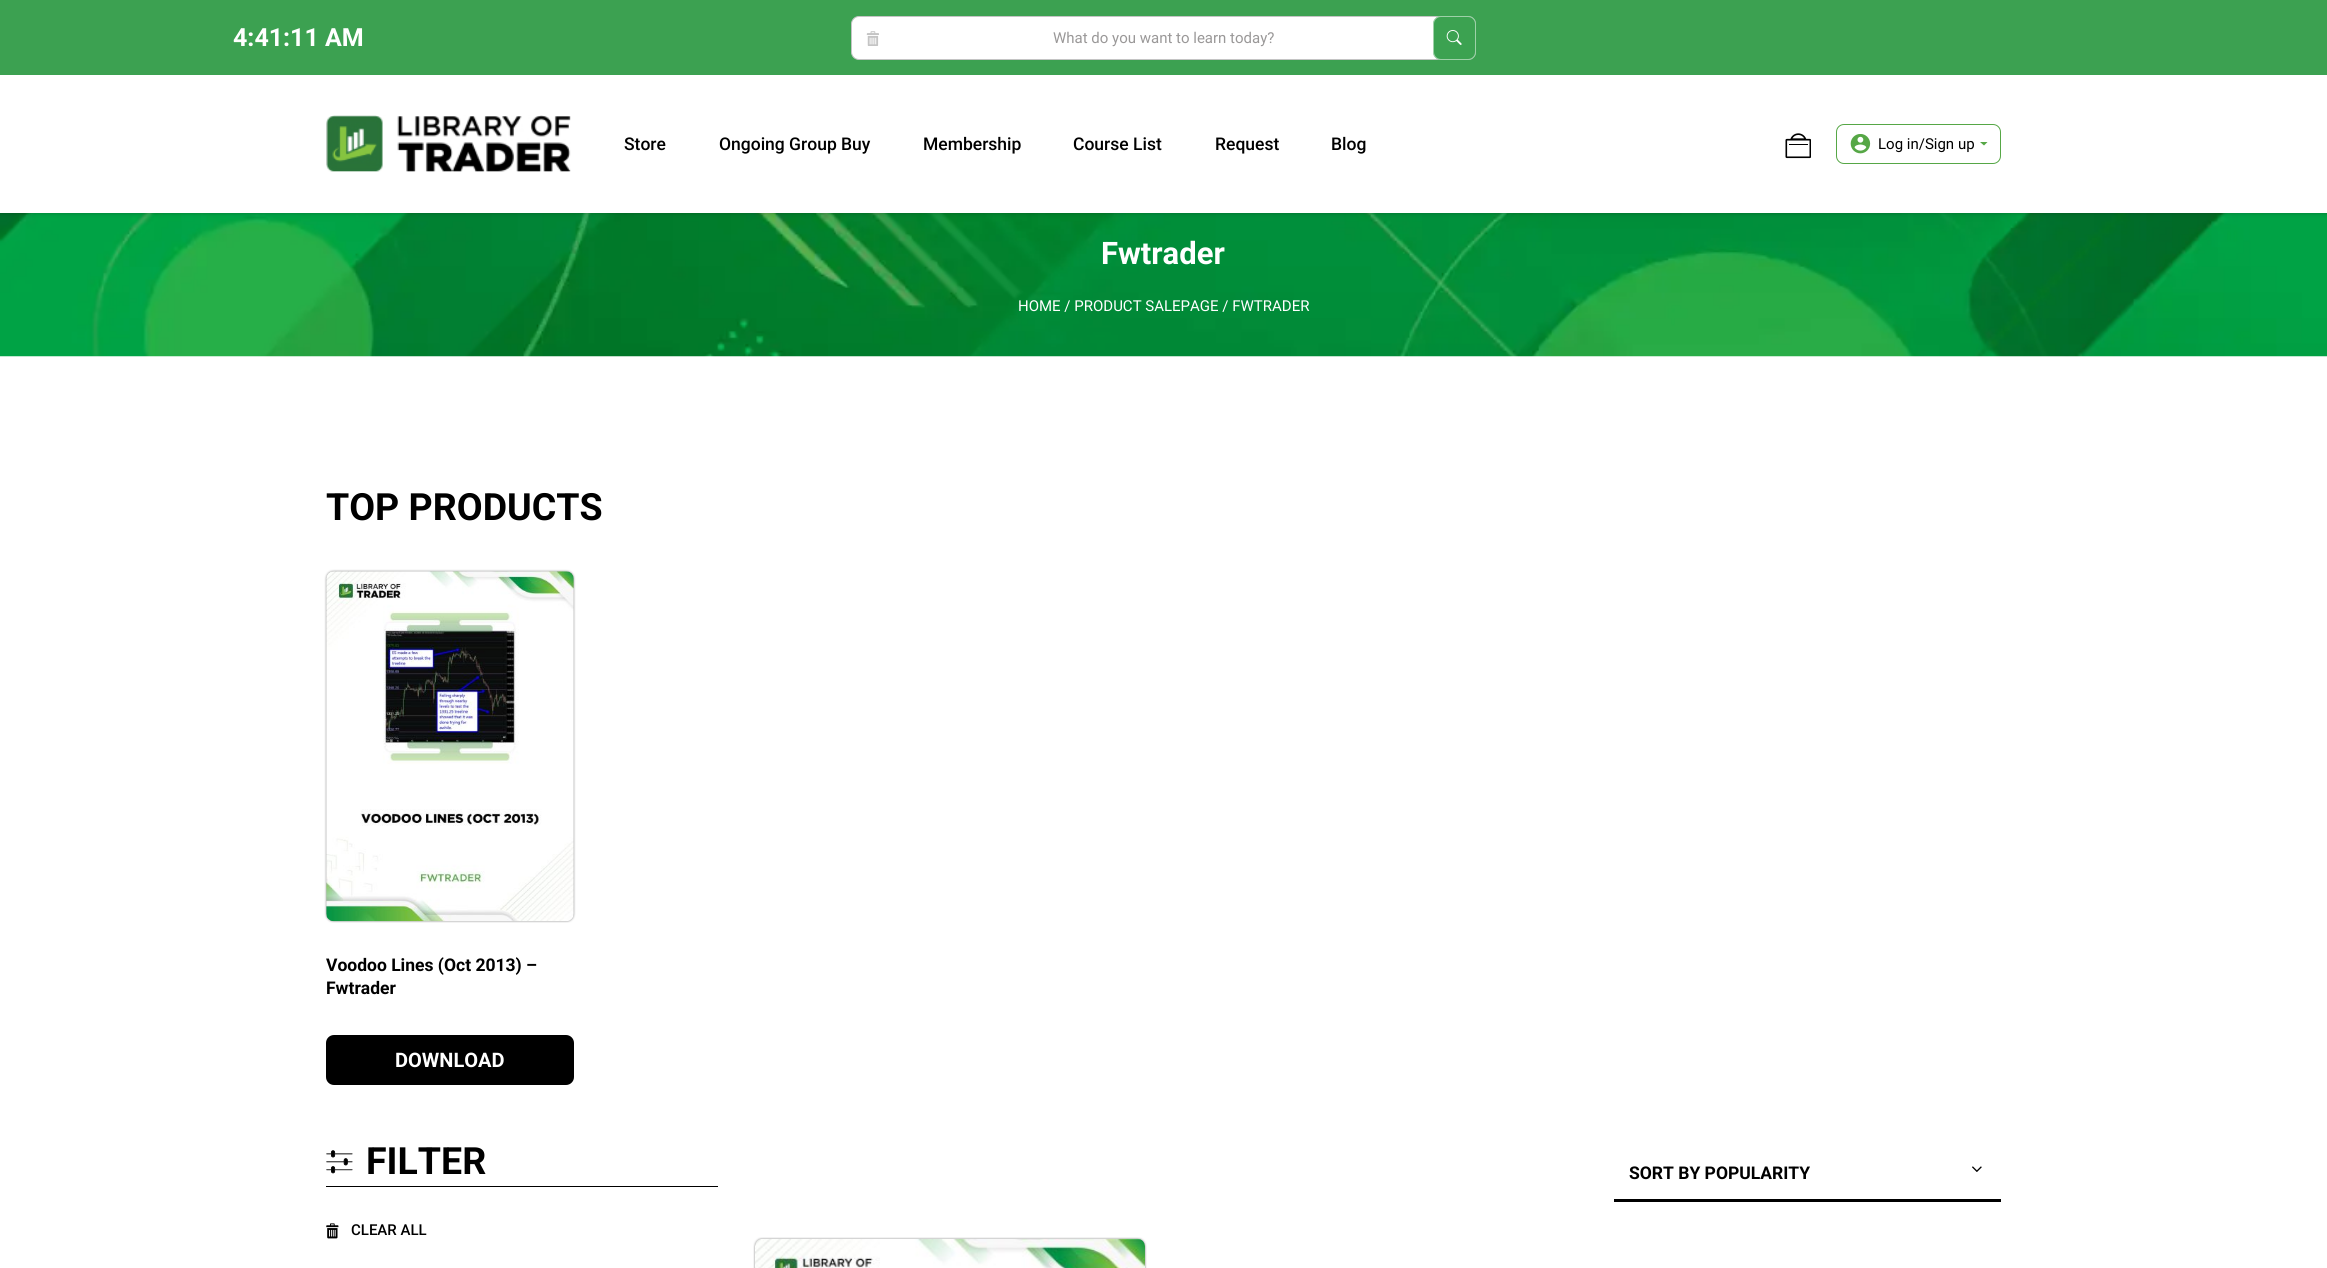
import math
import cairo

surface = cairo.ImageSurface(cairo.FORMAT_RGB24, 2327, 1268)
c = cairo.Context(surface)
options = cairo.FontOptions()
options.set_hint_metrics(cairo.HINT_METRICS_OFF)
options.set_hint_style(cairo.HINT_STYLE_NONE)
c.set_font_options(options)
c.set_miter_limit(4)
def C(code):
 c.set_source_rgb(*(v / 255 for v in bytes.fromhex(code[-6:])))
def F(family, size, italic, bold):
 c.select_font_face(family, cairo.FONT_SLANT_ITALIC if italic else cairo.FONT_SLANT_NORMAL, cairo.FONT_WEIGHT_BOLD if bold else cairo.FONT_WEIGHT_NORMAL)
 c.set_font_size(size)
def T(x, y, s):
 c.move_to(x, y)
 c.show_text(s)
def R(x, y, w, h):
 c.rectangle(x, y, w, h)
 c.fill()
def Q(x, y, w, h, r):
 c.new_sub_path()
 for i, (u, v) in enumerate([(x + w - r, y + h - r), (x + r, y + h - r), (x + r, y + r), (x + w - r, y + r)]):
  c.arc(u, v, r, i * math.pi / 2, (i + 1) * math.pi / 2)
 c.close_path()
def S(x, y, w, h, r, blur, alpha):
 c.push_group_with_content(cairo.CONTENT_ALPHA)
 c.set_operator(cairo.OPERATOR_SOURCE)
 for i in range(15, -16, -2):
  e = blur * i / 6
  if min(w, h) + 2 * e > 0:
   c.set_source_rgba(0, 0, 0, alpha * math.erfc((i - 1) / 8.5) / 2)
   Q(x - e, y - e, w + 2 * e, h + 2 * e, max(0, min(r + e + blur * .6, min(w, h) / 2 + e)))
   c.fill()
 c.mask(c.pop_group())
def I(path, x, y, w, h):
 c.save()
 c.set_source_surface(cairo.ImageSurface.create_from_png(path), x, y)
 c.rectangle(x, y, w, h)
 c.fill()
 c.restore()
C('ffffff')
c.paint()
I('6.png',0,213,2327,144)
C('000000')
S(0,75,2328,138,0,2.5,.25)
C('3ca151')
R(0,0,2327,75)
F('Roboto',25,0,1)
C('ffffff')
T(233,46,'4:41:11 AM')
Q(851.5,16.5,624,43,7.5)
c.fill_preserve()
C('c4c4c4')
c.set_line_width(1)
c.stroke()
I('1.png',866,31,13,15)
F('Roboto',15,0,0)
C('9a9898')
T(1053,43,'What do you want to learn today?')
C('3ca251')
Q(1433,16,43,44,8)
c.fill()
Q(1433.5,16.5,42,43,7.5)
c.set_source_rgba(1,1,1,0.5)
c.stroke()
I('2.png',1446,30,16,15)
C('ffffff')
R(0,75,2327,138)
I('3.png',326,115,245,57)
F('Roboto Medium',17.5,0,0)
C('000000')
T(624,150,'Store')
T(719,150,'Ongoing Group Buy')
T(923,150,'Membership')
T(1073,150,'Course List')
T(1215,150,'Request')
T(1331,150,'Blog')
I('4.png',1785,133,26,26)
Q(1836.5,124.5,164,39,7.5)
C('56a746')
c.stroke()
I('5.png',1850,134,21,20)
F('Roboto',15,0,0)
C('000000')
T(1878,149,'Log in/Sign up')
C('56a746')
c.new_path()
c.move_to(1980,142)
c.line_to(1987.5,142)
c.line_to(1984,145.5)
c.close_path()
c.fill()
F('Roboto',31,0,1)
C('ffffff')
T(1101,264,'Fwtrader')
F('Roboto',15,0,0)
T(1018,311,'HOME / PRODUCT SALEPAGE / FWTRADER')
F('Roboto',37.5,0,1)
C('000000')
T(326,520,'TOP PRODUCTS')
I('7.png',324,569,252,354)
F('Roboto',17.5,0,1)
T(326,971,'Voodoo Lines (Oct 2013) –')
T(326,994,'Fwtrader')
Q(326,1035,248,50,8)
c.fill()
F('Roboto',20,0,1)
C('ffffff')
T(395,1067,'DOWNLOAD')
C('000000')
R(326,1186,392,1)
I('8.png',326,1150,27,24)
F('Roboto',37.5,0,1)
T(366,1174,'FILTER')
I('9.png',326,1223,13,16)
F('Roboto Medium',15,0,0)
T(351,1235,'CLEAR ALL')
R(1614,1199,387,3)
F('Roboto',17.5,0,1)
T(1629,1179,'SORT BY POPULARITY')
I('10.png',1972,1166,10,6)
I('11.png',753,1237,394,31)
surface.write_to_png('o.png')
